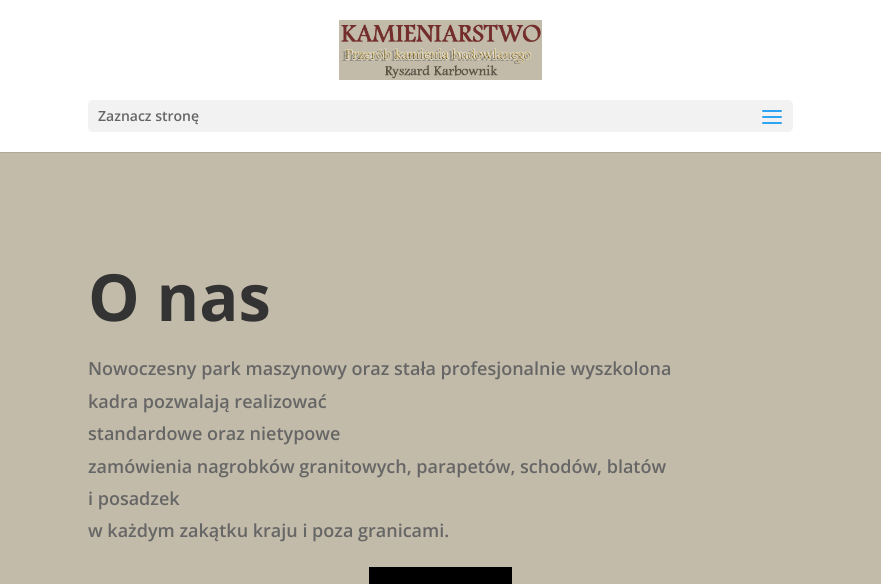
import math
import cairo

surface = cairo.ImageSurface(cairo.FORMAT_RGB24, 881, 584)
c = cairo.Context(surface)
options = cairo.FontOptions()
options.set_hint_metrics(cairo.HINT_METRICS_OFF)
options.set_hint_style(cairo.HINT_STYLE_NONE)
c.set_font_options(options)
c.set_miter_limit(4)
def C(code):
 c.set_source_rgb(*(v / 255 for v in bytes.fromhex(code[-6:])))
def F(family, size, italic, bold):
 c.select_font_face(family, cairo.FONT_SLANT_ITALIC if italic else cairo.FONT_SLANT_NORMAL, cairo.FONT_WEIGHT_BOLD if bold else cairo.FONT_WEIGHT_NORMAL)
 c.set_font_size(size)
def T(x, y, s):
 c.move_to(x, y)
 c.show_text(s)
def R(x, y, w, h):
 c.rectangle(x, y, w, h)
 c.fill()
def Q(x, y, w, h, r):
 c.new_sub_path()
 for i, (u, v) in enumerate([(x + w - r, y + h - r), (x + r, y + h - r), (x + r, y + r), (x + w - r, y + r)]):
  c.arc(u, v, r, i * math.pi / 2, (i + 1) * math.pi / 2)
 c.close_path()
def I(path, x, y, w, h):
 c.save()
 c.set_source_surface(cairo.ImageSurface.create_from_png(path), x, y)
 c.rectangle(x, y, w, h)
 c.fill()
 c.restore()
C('c2bba9')
c.paint()
C('afa898')
R(0,152,881,1)
C('ffffff')
R(0,0,881,152)
I('1.png',339,20,203,60)
C('f2f2f2')
Q(88,100,705,32,5)
c.fill()
F('Open Sans SemiBold',14,0,0)
C('666666')
T(98,121,'Zaznacz stronę')
I('2.png',762,110,20,14)
F('Open Sans',65,0,1)
C('333333')
T(88,321,'O nas')
F('Open Sans SemiBold',18,0,0)
C('666666')
T(88,375,'Nowoczesny park maszynowy oraz stała profesjonalnie wyszkolona')
T(88,408,'kadra pozwalają realizować')
T(88,440,'standardowe oraz nietypowe')
T(88,473,'zamówienia nagrobków granitowych, parapetów, schodów, blatów')
T(88,505,'i posadzek')
T(88,537,'w każdym zakątku kraju i poza granicami.')
C('000000')
R(369,567,143,17)
surface.write_to_png('o.png')
